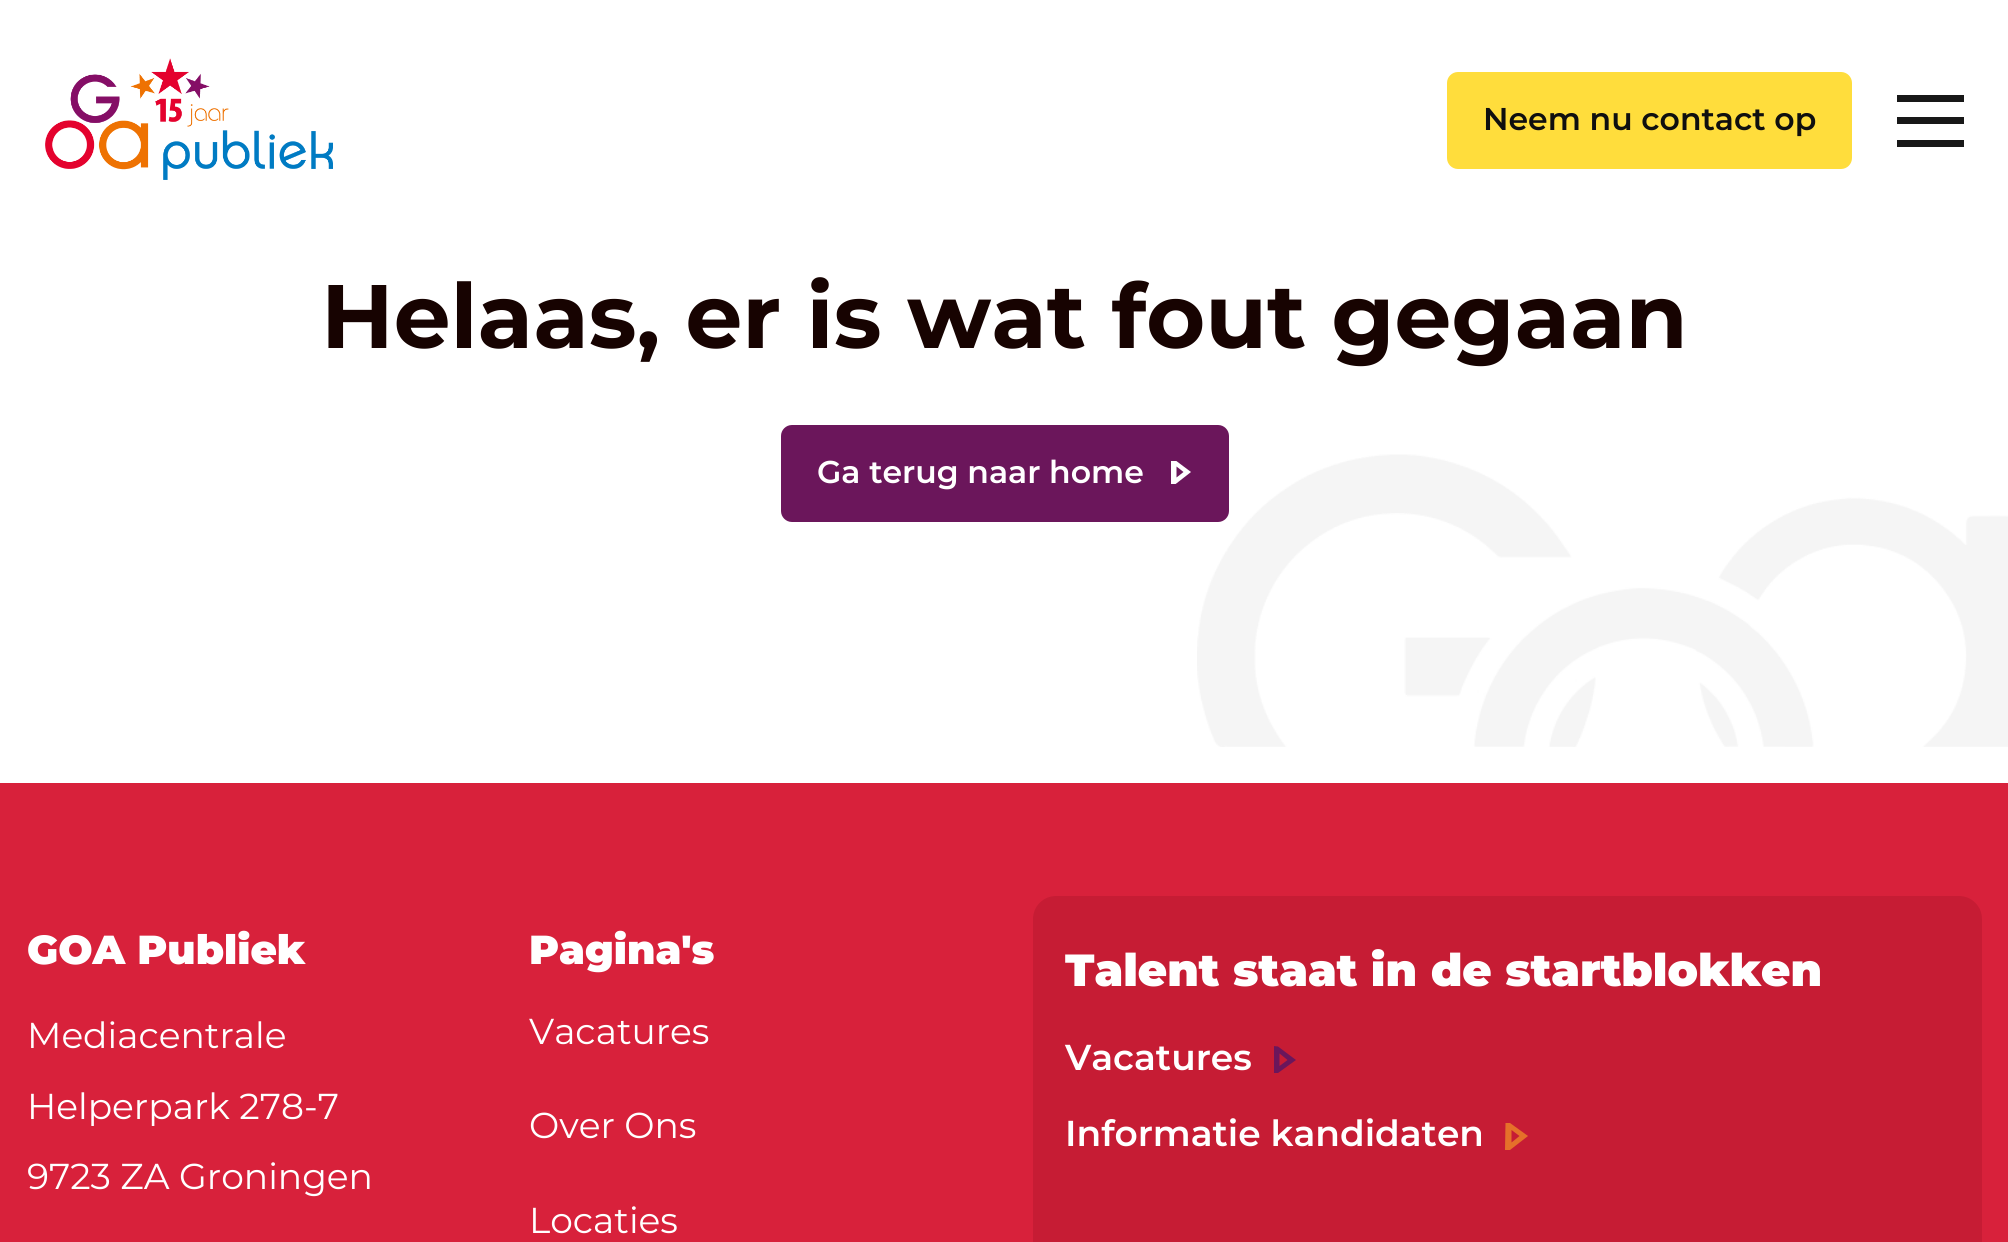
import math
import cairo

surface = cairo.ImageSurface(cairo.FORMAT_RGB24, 2008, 1242)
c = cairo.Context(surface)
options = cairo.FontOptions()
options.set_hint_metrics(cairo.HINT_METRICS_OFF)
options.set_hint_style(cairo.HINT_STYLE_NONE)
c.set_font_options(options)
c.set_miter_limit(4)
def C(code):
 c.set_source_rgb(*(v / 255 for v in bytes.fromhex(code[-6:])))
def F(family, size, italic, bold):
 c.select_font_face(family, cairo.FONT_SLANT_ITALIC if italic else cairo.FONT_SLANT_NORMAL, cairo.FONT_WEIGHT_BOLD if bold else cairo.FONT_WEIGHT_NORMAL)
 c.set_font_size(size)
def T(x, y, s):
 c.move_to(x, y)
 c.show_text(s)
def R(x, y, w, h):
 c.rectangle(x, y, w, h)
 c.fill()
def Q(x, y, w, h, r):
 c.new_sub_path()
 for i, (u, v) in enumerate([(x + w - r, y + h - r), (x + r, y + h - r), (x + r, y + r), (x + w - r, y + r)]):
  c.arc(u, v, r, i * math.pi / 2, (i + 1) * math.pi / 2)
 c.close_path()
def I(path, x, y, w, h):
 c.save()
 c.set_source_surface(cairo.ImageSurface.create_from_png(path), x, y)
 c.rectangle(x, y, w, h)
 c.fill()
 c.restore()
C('ffffff')
c.paint()
I('1.png',45,58,288,122)
C('ffdd3c')
Q(1447,72,405,97,11)
c.fill()
F('Montserrat SemiBold',31.5,0,0)
C('0f0f0f')
T(1483,130,'Neem nu contact op')
C('181818')
R(1897,95,67,7)
R(1897,117,67,7)
R(1897,140,67,7)
F('Montserrat',90,0,1)
C('170301')
T(321,348,'Helaas, er is wat fout gegaan')
I('2.png',1197,454,811,293)
C('6b165b')
Q(781,425,448,97,11)
c.fill()
F('Montserrat SemiBold',31.5,0,0)
C('ffffff')
T(817,483,'Ga terug naar home')
c.save()
c.rectangle(1170,461,23,23)
c.clip()
c.new_path()
c.move_to(1171,460)
c.line_to(1175,460)
c.line_to(1191,472)
c.line_to(1175,484.5)
c.line_to(1171,484.5)
c.close_path()
c.move_to(1183.5,472)
c.line_to(1176.5,466.5)
c.line_to(1176.5,477.5)
c.close_path()
c.fill()
c.restore()
C('d8213b')
R(0,783,2008,459)
F('Montserrat Black',40.5,0,0)
C('ffffff')
T(27,964,'GOA Publiek')
F('Montserrat',36,0,0)
T(27,1048,'Mediacentrale')
T(27,1119,'Helperpark 278-7')
T(27,1189,'9723 ZA Groningen')
F('Montserrat Black',40.5,0,0)
T(529,964,'Pagina\'s')
F('Montserrat',36,0,0)
T(529,1044,'Vacatures')
T(529,1138,'Over Ons')
T(529,1233,'Locaties')
C('c61c34')
Q(1033,896,949,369,23)
c.fill()
F('Montserrat Black',45,0,0)
C('ffffff')
T(1065,986,'Talent staat in de startblokken')
F('Montserrat SemiBold',36,0,0)
T(1065,1070,'Vacatures')
c.save()
c.rectangle(1274,1046,22,27)
c.clip()
C('6b165b')
c.new_path()
c.move_to(1273.5,1046)
c.line_to(1278,1046.5)
c.line_to(1296,1060)
c.line_to(1278,1073)
c.line_to(1273.5,1073)
c.close_path()
c.move_to(1287.5,1060)
c.line_to(1279.5,1053.5)
c.line_to(1279.5,1066)
c.close_path()
c.fill()
c.restore()
T(1065,1146,'Informatie kandidaten')
C('e5702a')
c.new_path()
c.move_to(1505.5,1123)
c.line_to(1510,1123)
c.line_to(1528,1136)
c.line_to(1510,1150)
c.line_to(1505,1150)
c.close_path()
c.move_to(1519.5,1136)
c.line_to(1511.5,1130)
c.line_to(1511.5,1142.5)
c.close_path()
c.fill()
surface.write_to_png('o.png')
